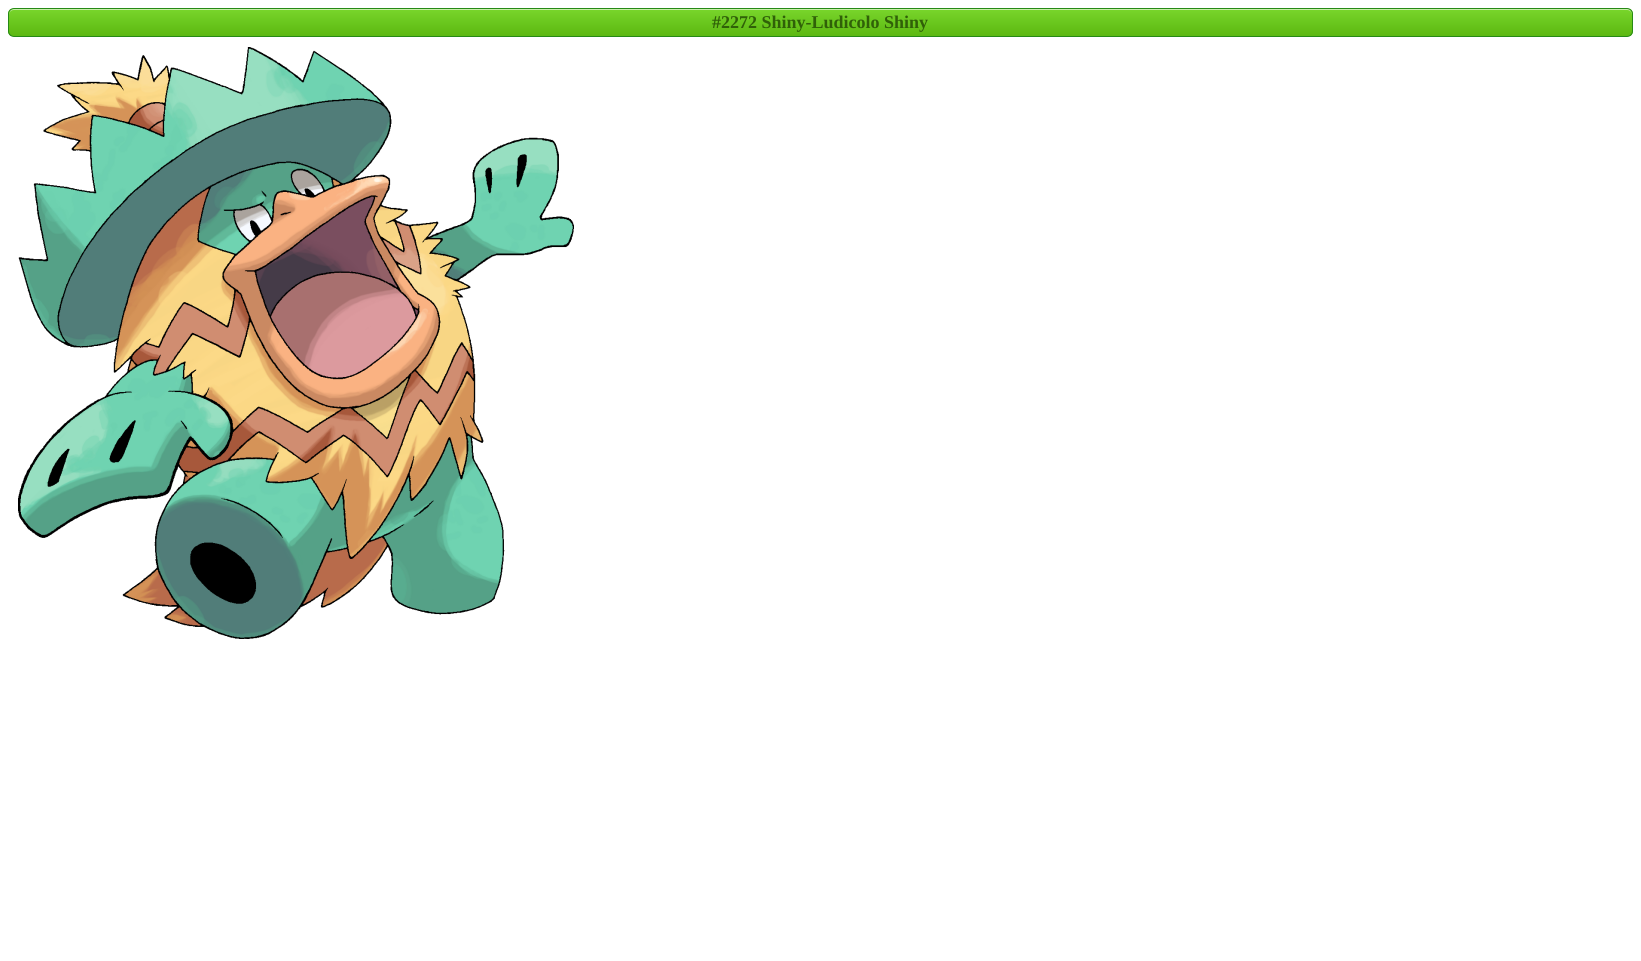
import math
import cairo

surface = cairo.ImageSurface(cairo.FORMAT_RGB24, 1641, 961)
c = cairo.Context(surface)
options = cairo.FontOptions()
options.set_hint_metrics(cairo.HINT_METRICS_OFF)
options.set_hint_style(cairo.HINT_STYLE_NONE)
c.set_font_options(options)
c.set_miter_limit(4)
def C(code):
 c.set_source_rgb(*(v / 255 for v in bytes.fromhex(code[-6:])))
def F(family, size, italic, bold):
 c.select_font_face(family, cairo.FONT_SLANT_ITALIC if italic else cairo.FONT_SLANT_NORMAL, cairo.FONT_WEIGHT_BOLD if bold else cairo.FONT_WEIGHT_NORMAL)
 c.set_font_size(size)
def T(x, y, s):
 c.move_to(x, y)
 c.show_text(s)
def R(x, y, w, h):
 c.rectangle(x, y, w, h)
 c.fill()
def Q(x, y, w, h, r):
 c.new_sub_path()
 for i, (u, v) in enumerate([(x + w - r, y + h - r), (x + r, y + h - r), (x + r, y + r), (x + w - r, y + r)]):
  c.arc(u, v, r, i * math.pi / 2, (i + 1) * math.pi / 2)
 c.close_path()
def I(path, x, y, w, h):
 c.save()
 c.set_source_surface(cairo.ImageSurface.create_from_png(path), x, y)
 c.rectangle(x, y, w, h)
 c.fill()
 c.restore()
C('ffffff')
c.paint()
c.save()
Q(8,8,1625,29,6)
c.clip()
gradient = cairo.LinearGradient(821,9,821,36)
gradient.add_color_stop_rgba(.05,0.467,0.831,0.165,1)
gradient.add_color_stop_rgba(1,0.361,0.722,0.067,1)
c.set_source(gradient)
R(8,9,1625,27)
c.restore()
C('caefab')
c.new_path()
c.move_to(14,10)
c.line_to(1627,10)
c.curve_to(1630,10,1632,12,1632,15)
c.line_to(1632,14)
c.curve_to(1632,11,1630,9,1627,9)
c.line_to(14,9)
c.curve_to(11,9,9,11,9,14)
c.line_to(9,15)
c.curve_to(9,12,11,10,14,10)
c.close_path()
c.fill()
Q(8.5,8.5,1624,28,5.5)
C('268a16')
c.set_line_width(1)
c.stroke()
F('Liberation Serif',18,0,1)
C('306108')
T(712,28,'#2272 Shiny-Ludicolo Shiny')
I('1.png',18,47,556,592)
surface.write_to_png('o.png')
